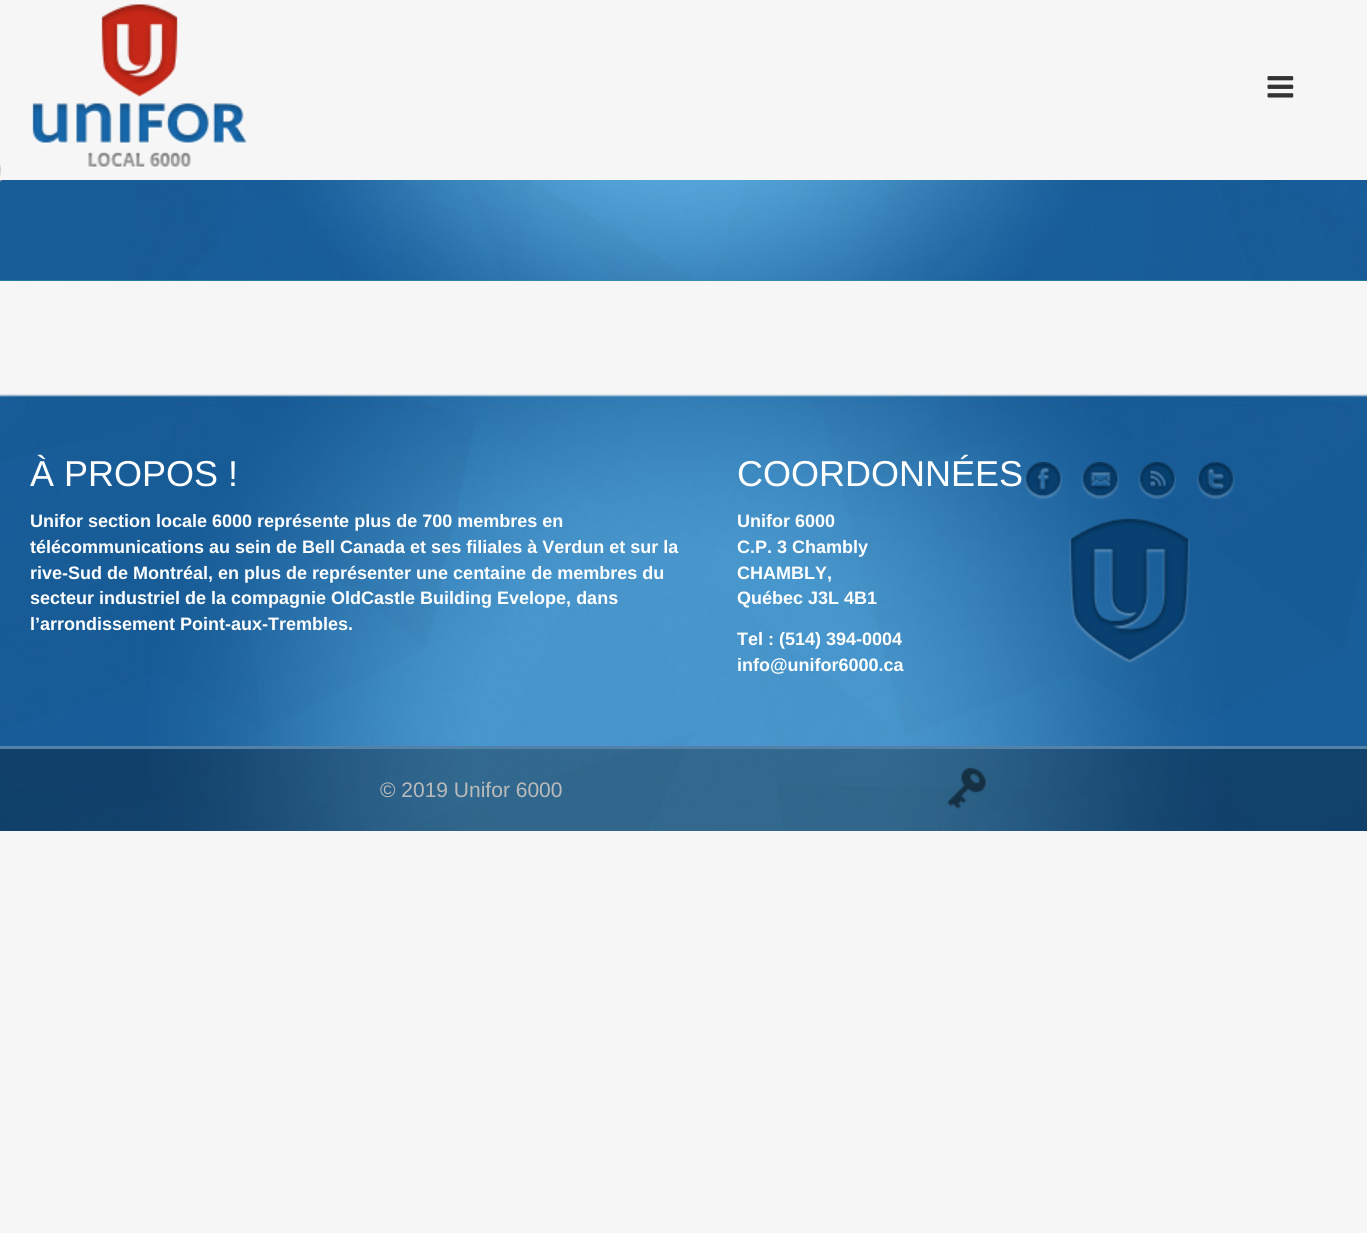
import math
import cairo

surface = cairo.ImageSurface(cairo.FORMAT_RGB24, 1367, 1233)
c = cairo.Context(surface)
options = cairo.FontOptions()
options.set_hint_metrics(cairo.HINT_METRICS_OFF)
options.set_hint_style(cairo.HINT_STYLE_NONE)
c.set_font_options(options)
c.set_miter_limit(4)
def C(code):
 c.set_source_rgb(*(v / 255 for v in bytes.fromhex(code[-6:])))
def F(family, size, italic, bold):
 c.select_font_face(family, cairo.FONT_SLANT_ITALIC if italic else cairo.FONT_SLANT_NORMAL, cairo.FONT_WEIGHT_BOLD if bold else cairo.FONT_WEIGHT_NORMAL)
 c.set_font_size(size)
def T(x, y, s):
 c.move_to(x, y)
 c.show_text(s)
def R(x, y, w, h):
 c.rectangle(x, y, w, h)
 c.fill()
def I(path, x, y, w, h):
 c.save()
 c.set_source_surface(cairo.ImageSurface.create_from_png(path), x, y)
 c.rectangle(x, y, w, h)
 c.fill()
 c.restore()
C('f6f6f6')
c.paint()
C('319aa4')
R(0,280,1367,1)
I('1.png',0,180,1367,101)
I('2.png',32,4,215,164)
I('3.png',0,165,2,17)
I('4.png',1267,76,27,22)
I('5.png',0,394,1367,437)
F('Liberation Sans',36,0,0)
C('ffffff')
T(30,486,'À PROPOS !')
F('Liberation Sans',18,0,1)
T(30,527,'Unifor section locale 6000 représente plus de 700 membres en')
T(30,553,'télécommunications au sein de Bell Canada et ses filiales à Verdun et sur la')
T(30,579,'rive-Sud de Montréal, en plus de représenter une centaine de membres du')
T(30,604,'secteur industriel de la compagnie OldCastle Building Evelope, dans')
T(30,630,'l’arrondissement Point-aux-Trembles.')
F('Liberation Sans',36,0,0)
T(737,486,'COORDONNÉES')
F('Liberation Sans',18,0,1)
T(737,527,'Unifor 6000')
T(737,553,'C.P. 3 Chambly')
T(737,579,'CHAMBLY,')
T(737,604,'Québec J3L 4B1')
T(737,645,'Tel : (514) 394-0004')
T(737,671,'info@unifor6000.ca')
I('6.png',1024,462,38,38)
I('7.png',1081,462,38,38)
I('8.png',1138,462,38,38)
I('9.png',1197,462,38,38)
I('10.png',1069,518,121,145)
c.set_source_rgba(0,0,0,0.3)
R(0,749,1367,82)
C('5481a7')
R(0,746,1367,3)
F('Liberation Sans',21,0,0)
C('bbbbbb')
T(380,797,'© 2019 Unifor 6000')
I('11.png',947,767,39,42)
surface.write_to_png('o.png')
